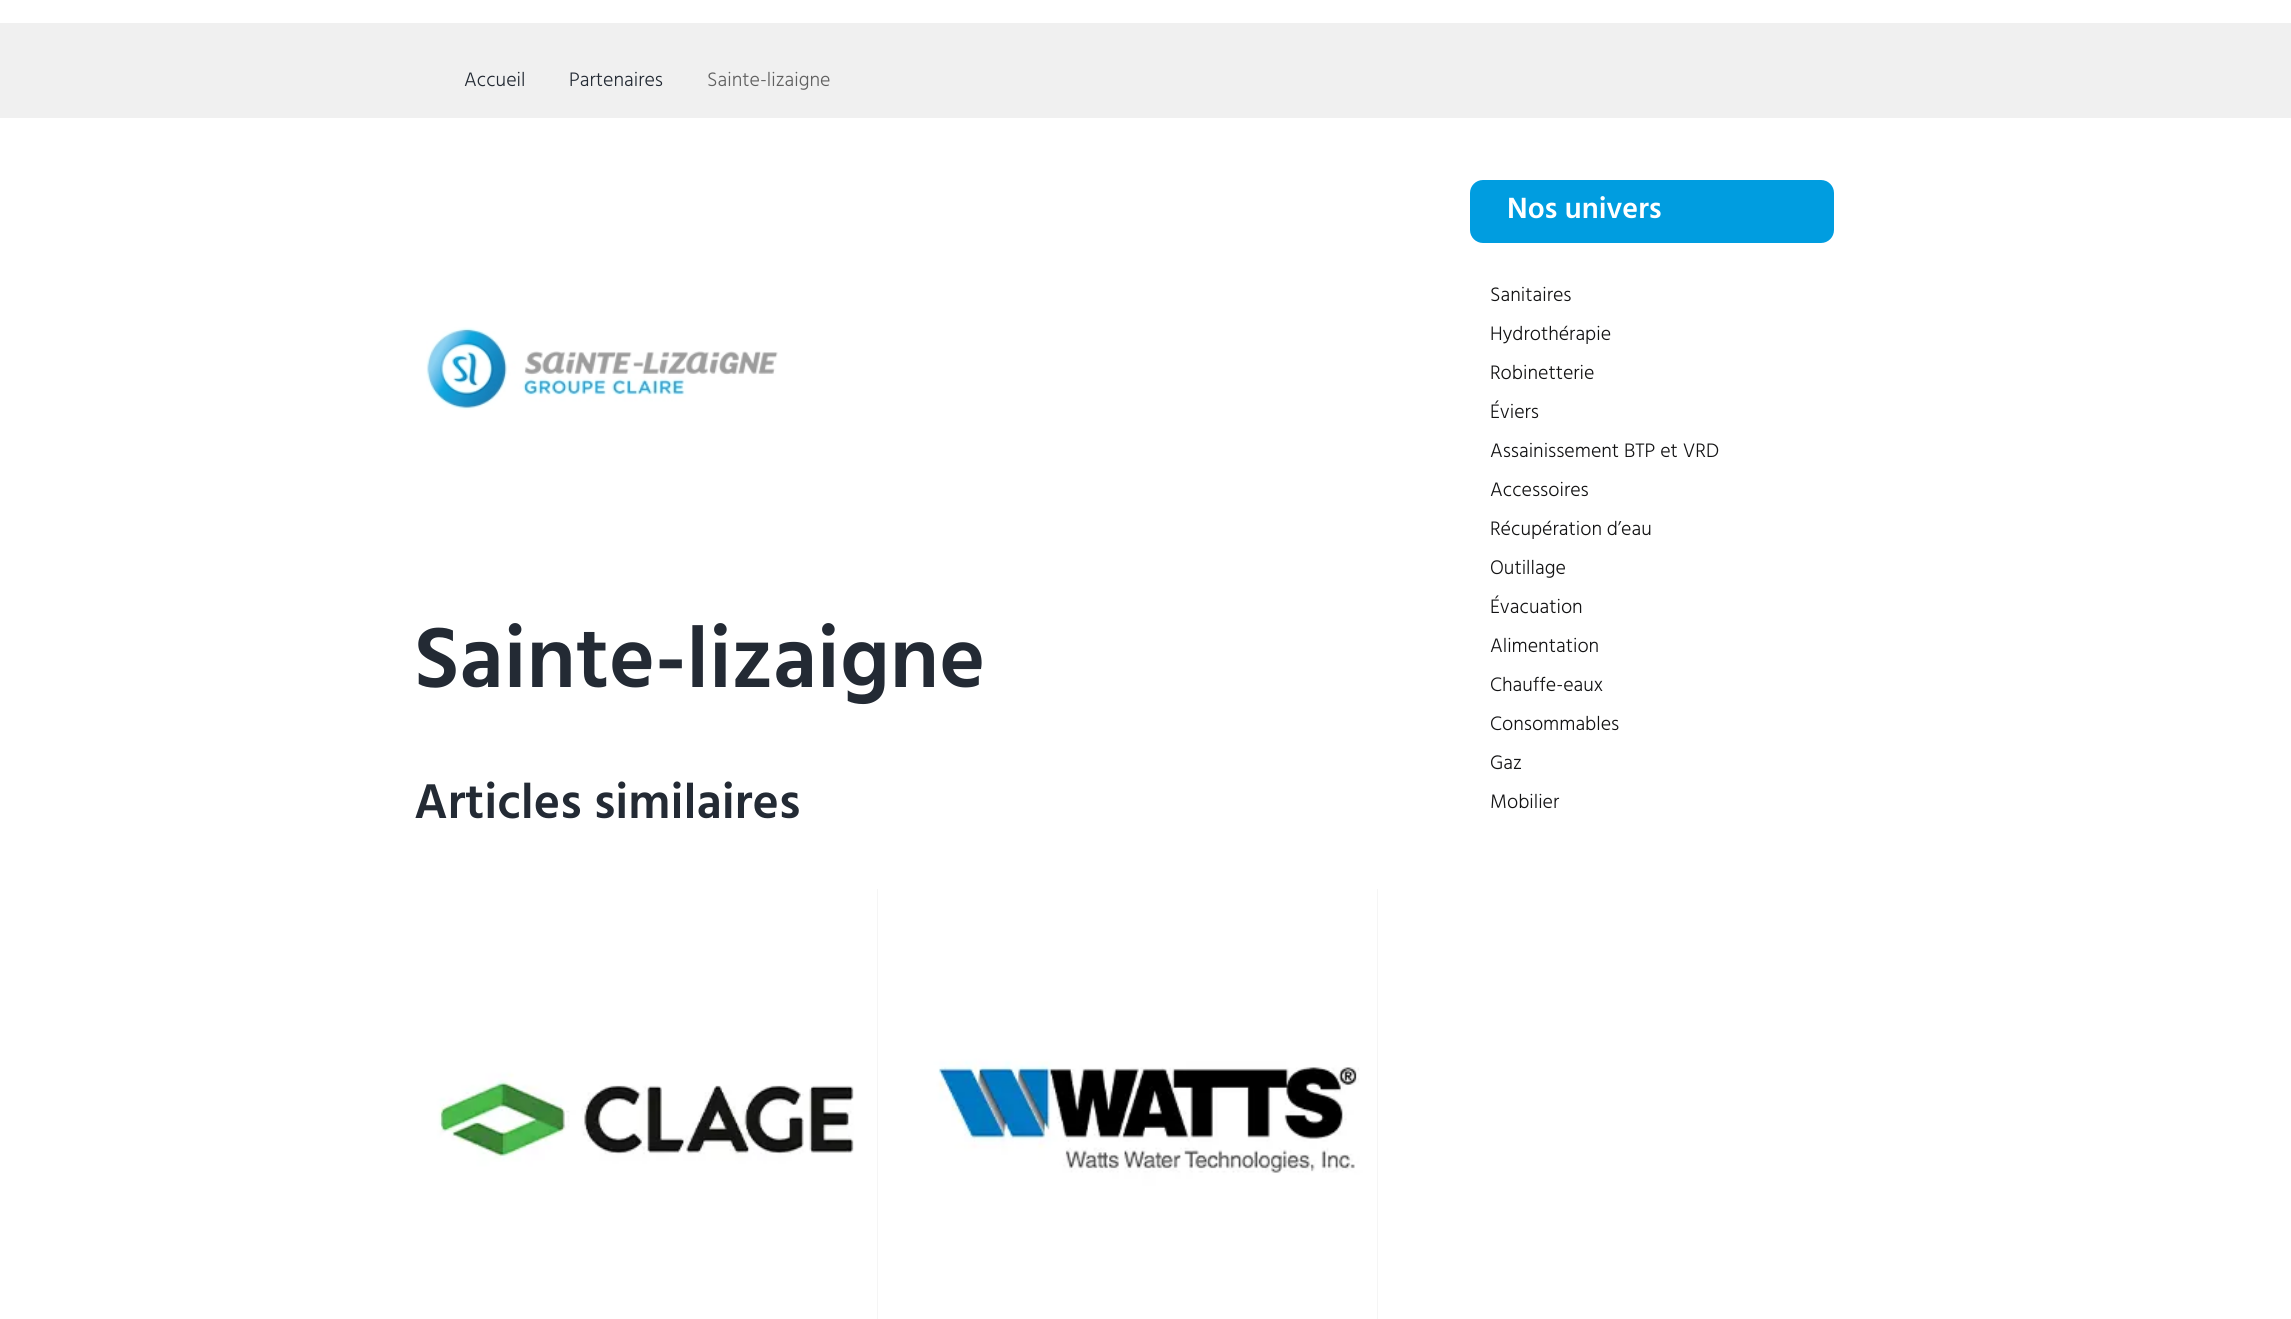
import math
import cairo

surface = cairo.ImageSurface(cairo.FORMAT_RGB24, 2291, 1319)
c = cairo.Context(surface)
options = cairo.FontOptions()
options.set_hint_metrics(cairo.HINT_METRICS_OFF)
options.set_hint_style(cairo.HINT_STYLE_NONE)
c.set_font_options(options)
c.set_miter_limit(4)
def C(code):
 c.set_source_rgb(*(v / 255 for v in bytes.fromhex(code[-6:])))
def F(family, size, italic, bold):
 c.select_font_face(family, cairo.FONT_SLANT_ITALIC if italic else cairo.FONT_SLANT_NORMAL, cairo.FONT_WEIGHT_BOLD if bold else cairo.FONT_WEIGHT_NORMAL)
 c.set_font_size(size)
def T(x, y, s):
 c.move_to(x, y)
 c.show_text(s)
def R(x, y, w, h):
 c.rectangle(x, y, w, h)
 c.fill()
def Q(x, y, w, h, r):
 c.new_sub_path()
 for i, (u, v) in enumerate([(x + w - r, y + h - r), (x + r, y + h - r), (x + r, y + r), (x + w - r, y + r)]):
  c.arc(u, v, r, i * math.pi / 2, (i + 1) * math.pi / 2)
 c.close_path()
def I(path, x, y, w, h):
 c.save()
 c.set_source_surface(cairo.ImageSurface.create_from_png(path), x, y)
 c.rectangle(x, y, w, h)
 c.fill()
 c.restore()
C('ffffff')
c.paint()
C('f0f0f0')
R(0,23,2291,95)
F('Hind Light',20,0,0)
C('232a34')
T(464,86,'Accueil')
T(569,86,'Partenaires')
C('606060')
T(707,86,'Sainte-lizaigne')
I('1.png',426,327,352,83)
F('Hind SemiBold',87.5,0,0)
C('232a34')
T(414,687,'Sainte-lizaigne')
F('Hind SemiBold',50,0,0)
T(414,818,'Articles similaires')
C('f5f5f5')
R(877,889,1,430)
I('2.png',415,889,462,430)
R(1377,889,1,430)
I('3.png',915,889,462,430)
C('009de0')
Q(1470,180,364,63,13)
c.fill()
F('Hind SemiBold',30,0,0)
C('ffffff')
T(1507,218,'Nos univers')
F('Hind Light',20,0,0)
C('131314')
T(1490,301,'Sanitaires')
T(1490,340,'Hydrothérapie')
T(1490,379,'Robinetterie')
T(1490,418,'Éviers')
T(1490,457,'Assainissement BTP et VRD')
T(1490,496,'Accessoires')
T(1490,535,'Récupération d’eau')
T(1490,574,'Outillage')
T(1490,613,'Évacuation')
T(1490,652,'Alimentation')
T(1490,691,'Chauffe-eaux')
T(1490,730,'Consommables')
T(1490,769,'Gaz')
T(1490,808,'Mobilier')
surface.write_to_png('o.png')
